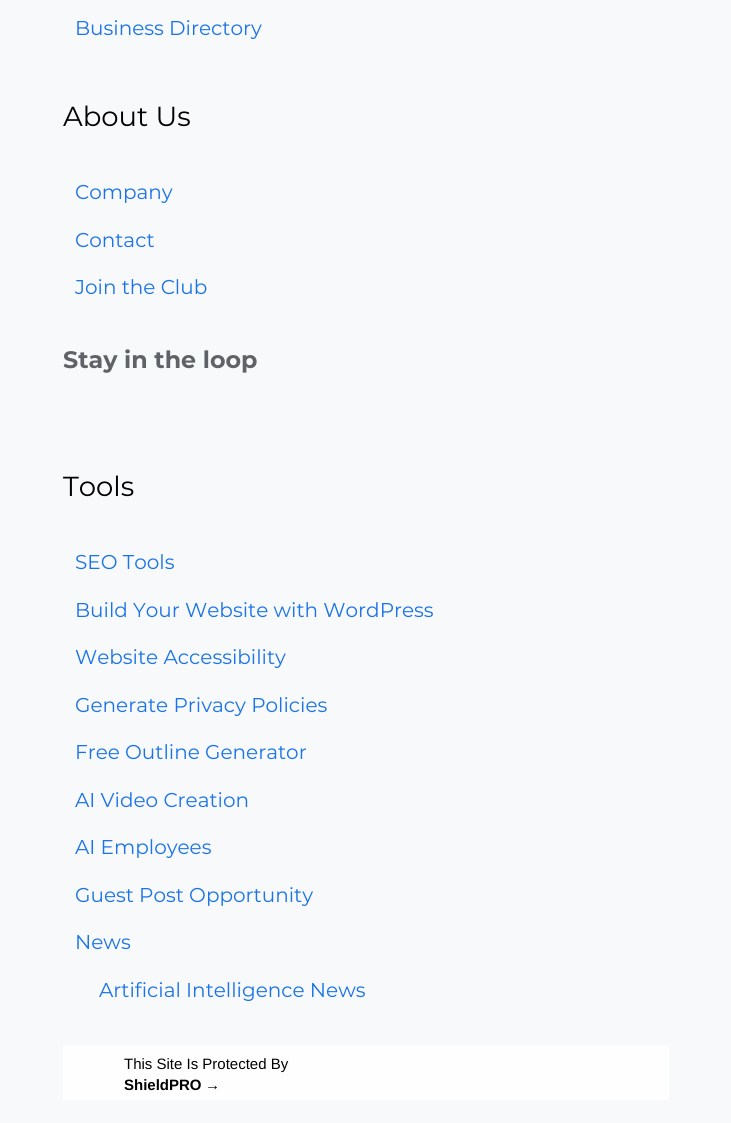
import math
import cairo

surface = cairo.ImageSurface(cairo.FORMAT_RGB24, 731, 1123)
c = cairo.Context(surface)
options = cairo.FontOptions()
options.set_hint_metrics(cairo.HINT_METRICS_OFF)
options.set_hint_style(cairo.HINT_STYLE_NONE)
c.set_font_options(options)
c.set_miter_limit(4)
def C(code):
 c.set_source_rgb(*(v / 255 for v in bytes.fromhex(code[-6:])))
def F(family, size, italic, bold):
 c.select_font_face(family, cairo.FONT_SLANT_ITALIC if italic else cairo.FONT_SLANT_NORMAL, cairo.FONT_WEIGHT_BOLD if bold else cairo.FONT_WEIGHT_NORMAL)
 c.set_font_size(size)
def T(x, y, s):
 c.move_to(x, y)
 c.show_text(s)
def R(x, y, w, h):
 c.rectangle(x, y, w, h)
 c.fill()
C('f8f9fa')
c.paint()
F('Montserrat',20,0,0)
C('1a73e8')
T(75,35,'Business Directory')
F('Montserrat',27.5,0,0)
C('000000')
T(63,126,'About Us')
F('Montserrat',20,0,0)
C('1a73e8')
T(75,199,'Company')
T(75,247,'Contact')
T(75,294,'Join the Club')
F('Montserrat',23.75,0,1)
C('5f6368')
T(63,368,'Stay in the loop')
F('Montserrat',27.5,0,0)
C('000000')
T(63,496,'Tools')
F('Montserrat',20,0,0)
C('1a73e8')
T(75,569,'SEO Tools')
T(75,617,'Build Your Website with WordPress')
T(75,664,'Website Accessibility')
T(75,712,'Generate Privacy Policies')
T(75,759,'Free Outline Generator')
T(75,807,'AI Video Creation')
T(75,854,'AI Employees')
T(75,902,'Guest Post Opportunity')
T(75,949,'News')
T(99,997,'Artificial Intelligence News')
C('fefeff')
R(63,1045,606,55)
F('Liberation Sans',15,0,0)
C('000000')
T(124,1069,'This Site Is Protected By')
F('Liberation Sans',15,0,1)
T(124,1090,'ShieldPRO')
F('Liberation Sans',15,0,0)
T(205,1090,'→')
surface.write_to_png('o.png')
